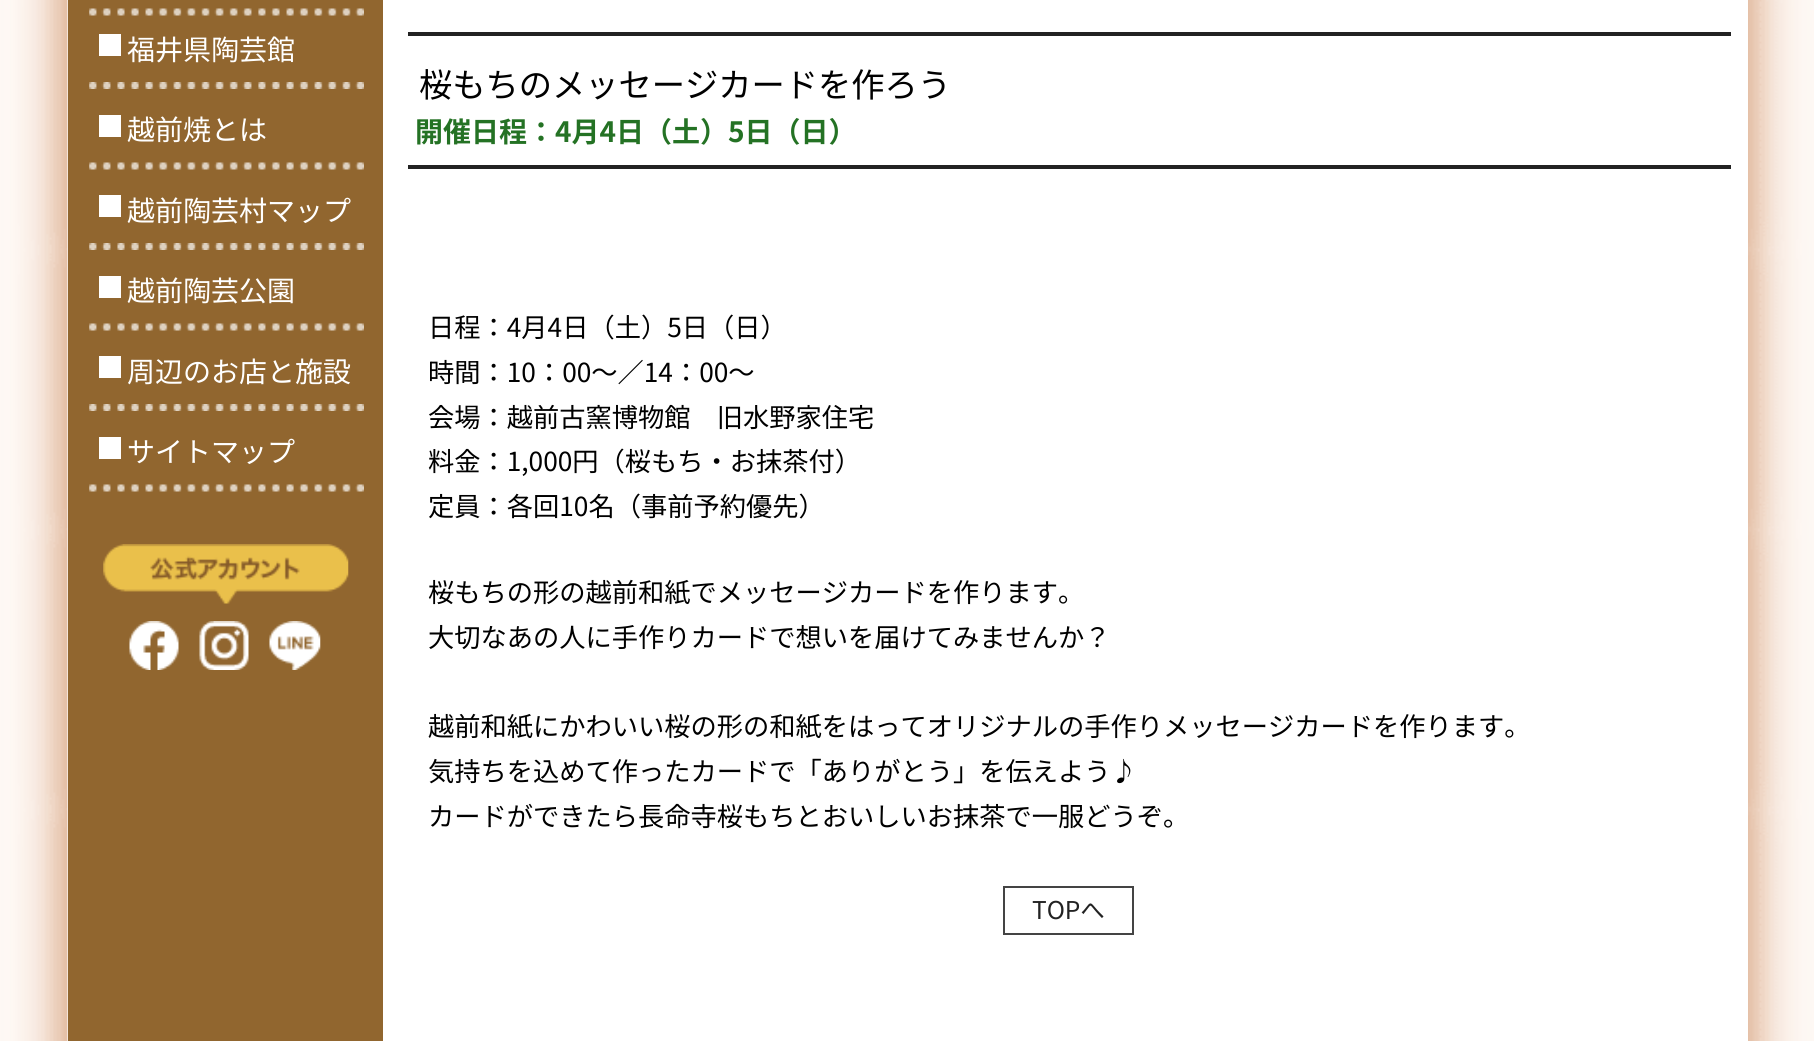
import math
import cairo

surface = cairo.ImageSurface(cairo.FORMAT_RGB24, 1814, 1041)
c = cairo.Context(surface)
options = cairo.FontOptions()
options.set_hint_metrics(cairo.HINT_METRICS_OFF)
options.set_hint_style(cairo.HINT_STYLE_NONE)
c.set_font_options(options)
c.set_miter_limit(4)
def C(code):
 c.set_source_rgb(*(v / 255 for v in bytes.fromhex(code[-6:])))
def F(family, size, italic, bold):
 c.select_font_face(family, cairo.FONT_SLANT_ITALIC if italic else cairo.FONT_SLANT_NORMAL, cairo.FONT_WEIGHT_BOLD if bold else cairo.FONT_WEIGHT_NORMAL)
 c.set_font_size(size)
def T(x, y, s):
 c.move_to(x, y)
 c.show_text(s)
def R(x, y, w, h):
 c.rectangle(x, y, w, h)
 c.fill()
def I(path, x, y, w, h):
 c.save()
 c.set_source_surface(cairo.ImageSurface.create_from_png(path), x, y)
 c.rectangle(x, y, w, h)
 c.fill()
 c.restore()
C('ffffff')
c.paint()
I('1.png',0,0,1814,1041)
C('ffffff')
R(1747,0,1,1041)
C('91662f')
R(68,0,315,1041)
I('2.png',89,8,275,8)
I('3.png',89,82,275,7)
F('Noto Sans JP',28,0,0)
C('ffffff')
T(127,60,'福井県陶芸館')
R(99,34,22,22)
I('2.png',89,162,275,8)
T(127,140,'越前焼とは')
R(99,115,22,22)
I('3.png',89,243,275,7)
T(127,221,'越前陶芸村マップ')
R(99,195,22,22)
I('2.png',89,323,275,8)
T(127,301,'越前陶芸公園')
R(99,276,22,22)
I('3.png',89,404,275,7)
T(127,382,'周辺のお店と施設')
R(99,356,22,22)
I('2.png',89,484,275,8)
T(127,462,'サイトマップ')
R(99,437,22,22)
I('4.png',103,544,246,60)
I('5.png',129,621,50,49)
I('6.png',199,621,50,49)
I('7.png',269,621,52,49)
C('222222')
R(408,32,1323,4)
R(408,165,1323,4)
F('Noto Sans JP',33.25,0,0)
C('000000')
T(419,97,'桜もちのメッセージカードを作ろう')
F('Noto Sans JP',28,0,1)
C('247224')
T(415,142,'開催日程：4月4日（土）5日（日）')
F('Noto Sans JP',26.25,0,0)
C('000000')
T(428,337,'日程：4月4日（土）5日（日）')
T(428,382,'時間：10：00～／14：00～')
T(428,427,'会場：越前古窯博物館　旧水野家住宅')
T(428,471,'料金：1,000円（桜もち・お抹茶付）')
T(428,516,'定員：各回10名（事前予約優先）')
T(428,602,'桜もちの形の越前和紙でメッセージカードを作ります。')
T(428,647,'大切なあの人に手作りカードで想いを届けてみませんか？')
T(428,736,'越前和紙にかわいい桜の形の和紙をはってオリジナルの手作りメッセージカードを作ります。')
T(428,781,'気持ちを込めて作ったカードで「ありがとう」を伝えよう♪')
T(428,826,'カードができたら長命寺桜もちとおいしいお抹茶で一服どうぞ。')
c.rectangle(1004,887,129,47)
C('444444')
c.stroke()
F('Noto Sans JP',24.5,0,0)
C('222222')
T(1032,919,'TOPへ')
surface.write_to_png('o.png')
